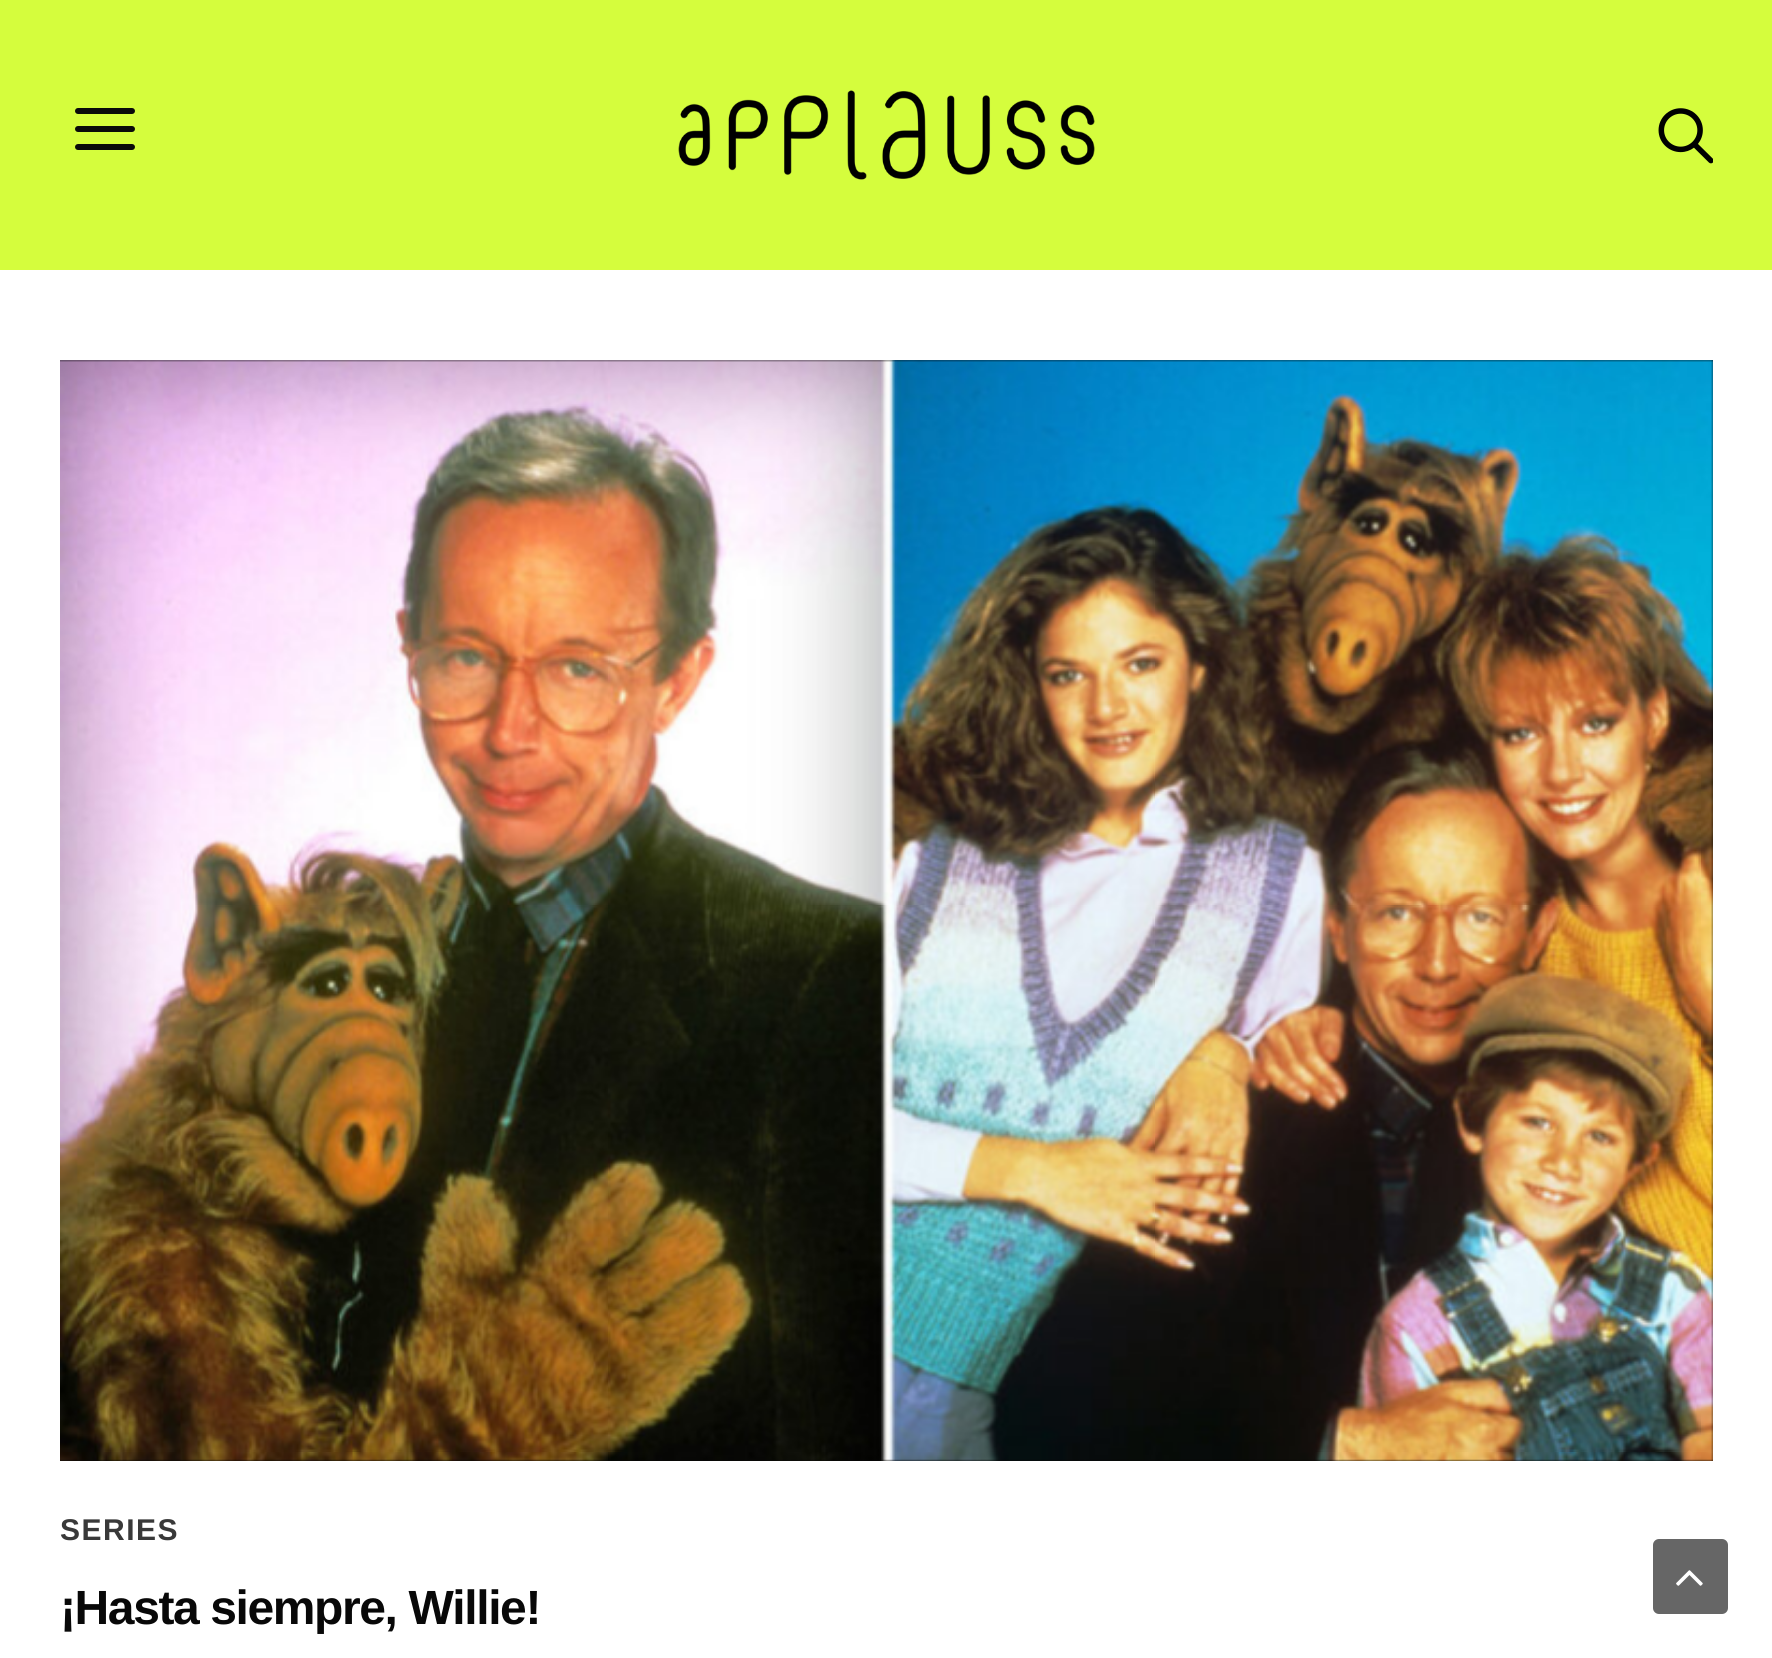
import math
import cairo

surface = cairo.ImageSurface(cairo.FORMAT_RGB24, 1772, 1658)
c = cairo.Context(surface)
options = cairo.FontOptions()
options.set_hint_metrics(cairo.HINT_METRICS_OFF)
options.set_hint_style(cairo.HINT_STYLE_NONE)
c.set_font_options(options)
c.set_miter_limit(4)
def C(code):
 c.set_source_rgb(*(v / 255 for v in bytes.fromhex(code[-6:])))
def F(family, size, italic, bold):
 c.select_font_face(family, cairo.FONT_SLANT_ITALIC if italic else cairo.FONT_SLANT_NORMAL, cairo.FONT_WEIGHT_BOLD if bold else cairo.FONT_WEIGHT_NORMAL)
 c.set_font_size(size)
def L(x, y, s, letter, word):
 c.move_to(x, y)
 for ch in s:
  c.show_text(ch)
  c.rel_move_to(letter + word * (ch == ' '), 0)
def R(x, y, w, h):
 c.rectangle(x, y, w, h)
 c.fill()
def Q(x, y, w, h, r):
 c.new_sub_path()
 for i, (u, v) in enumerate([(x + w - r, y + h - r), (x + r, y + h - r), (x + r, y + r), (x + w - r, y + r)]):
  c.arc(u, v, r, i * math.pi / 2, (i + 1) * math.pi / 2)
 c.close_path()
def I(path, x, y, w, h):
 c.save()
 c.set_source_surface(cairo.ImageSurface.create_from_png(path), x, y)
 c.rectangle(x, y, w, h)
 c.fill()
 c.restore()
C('ffffff')
c.paint()
C('d5fd3d')
R(0,0,1772,270)
C('0a0a0a')
Q(75,108,60,6,3)
c.fill()
Q(75,126,60,6,3)
c.fill()
Q(75,144,60,6,3)
c.fill()
I('1.png',678,90,417,90)
I('2.png',1658,108,55,56)
C('080808')
R(60,360,1653,1101)
I('3.png',60,360,1653,1101)
F('Liberation Sans',30,0,1)
C('393939')
L(60,1540,'SERIES',1.5,0)
F('Liberation Sans',48,0,1)
C('080808')
L(60,1624,'¡Hasta siempre, Willie!',-1.4,0)
C('666666')
Q(1653,1539,75,75,6)
c.fill()
I('4.png',1676,1570,27,16)
surface.write_to_png('o.png')
